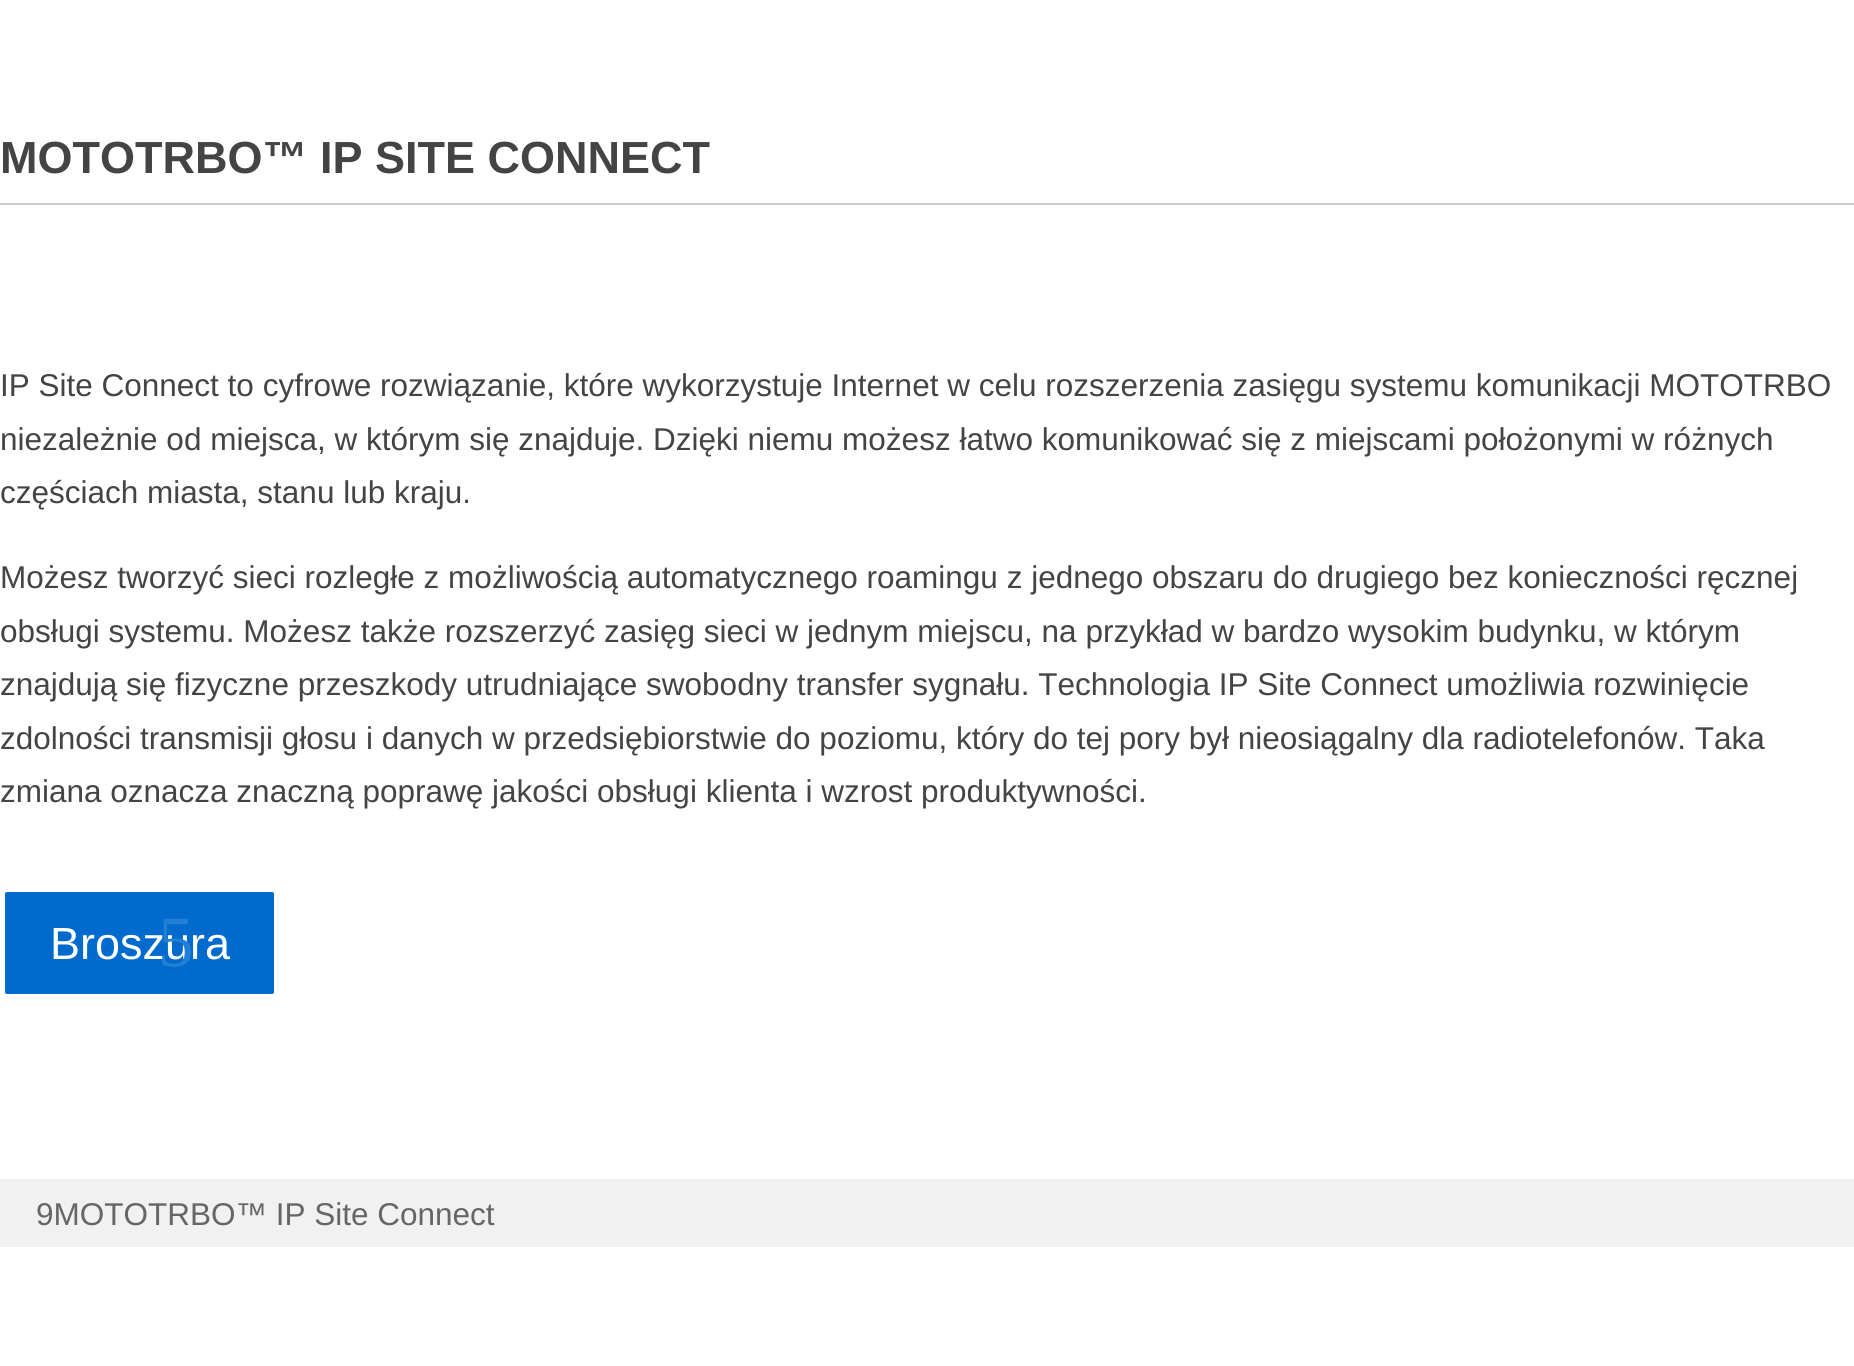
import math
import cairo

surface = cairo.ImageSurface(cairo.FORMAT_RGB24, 1854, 1366)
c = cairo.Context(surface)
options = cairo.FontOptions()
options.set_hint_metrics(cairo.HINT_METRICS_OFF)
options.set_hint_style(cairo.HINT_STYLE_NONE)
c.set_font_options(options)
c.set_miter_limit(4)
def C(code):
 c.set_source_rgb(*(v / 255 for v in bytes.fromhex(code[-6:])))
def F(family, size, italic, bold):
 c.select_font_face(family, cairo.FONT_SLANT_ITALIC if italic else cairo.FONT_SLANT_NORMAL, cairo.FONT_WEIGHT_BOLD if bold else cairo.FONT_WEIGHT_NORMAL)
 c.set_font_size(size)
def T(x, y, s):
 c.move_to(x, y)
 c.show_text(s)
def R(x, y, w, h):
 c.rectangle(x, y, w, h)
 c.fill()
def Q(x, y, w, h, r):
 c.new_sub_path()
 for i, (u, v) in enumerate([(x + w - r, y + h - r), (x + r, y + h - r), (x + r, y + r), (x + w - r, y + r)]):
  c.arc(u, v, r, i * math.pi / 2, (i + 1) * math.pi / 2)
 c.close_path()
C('ffffff')
c.paint()
F('Liberation Sans',45,0,1)
C('444444')
T(0,173,'MOTOTRBO™ IP SITE CONNECT')
C('cccccc')
R(0,203,1854,2)
F('Liberation Sans',31.5,0,0)
C('444444')
T(0,396,'IP Site Connect to cyfrowe rozwiązanie, które wykorzystuje Internet w celu rozszerzenia zasięgu systemu komunikacji MOTOTRBO')
T(0,450,'niezależnie od miejsca, w którym się znajduje. Dzięki niemu możesz łatwo komunikować się z miejscami położonymi w różnych')
T(0,503,'częściach miasta, stanu lub kraju.')
T(0,588,'Możesz tworzyć sieci rozległe z możliwością automatycznego roamingu z jednego obszaru do drugiego bez konieczności ręcznej')
T(0,642,'obsługi systemu. Możesz także rozszerzyć zasięg sieci w jednym miejscu, na przykład w bardzo wysokim budynku, w którym')
T(0,695,'znajdują się fizyczne przeszkody utrudniające swobodny transfer sygnału. Technologia IP Site Connect umożliwia rozwinięcie')
T(0,749,'zdolności transmisji głosu i danych w przedsiębiorstwie do poziomu, który do tej pory był nieosiągalny dla radiotelefonów. Taka')
T(0,802,'zmiana oznacza znaczną poprawę jakości obsługi klienta i wzrost produktywności.')
C('006acd')
Q(2.5,889.5,274,107,4.5)
c.fill_preserve()
C('ffffff')
c.set_line_width(5)
c.stroke()
F('Liberation Sans',45,0,0)
T(50,959,'Broszura')
F('Liberation Serif',72,0,0)
C('237fd4')
T(158,966,'5')
C('f1f1f1')
R(0,1179,1854,68)
F('Liberation Sans',31.5,0,0)
C('666666')
T(36,1225,'9MOTOTRBO™ IP Site Connect')
surface.write_to_png('o.png')
